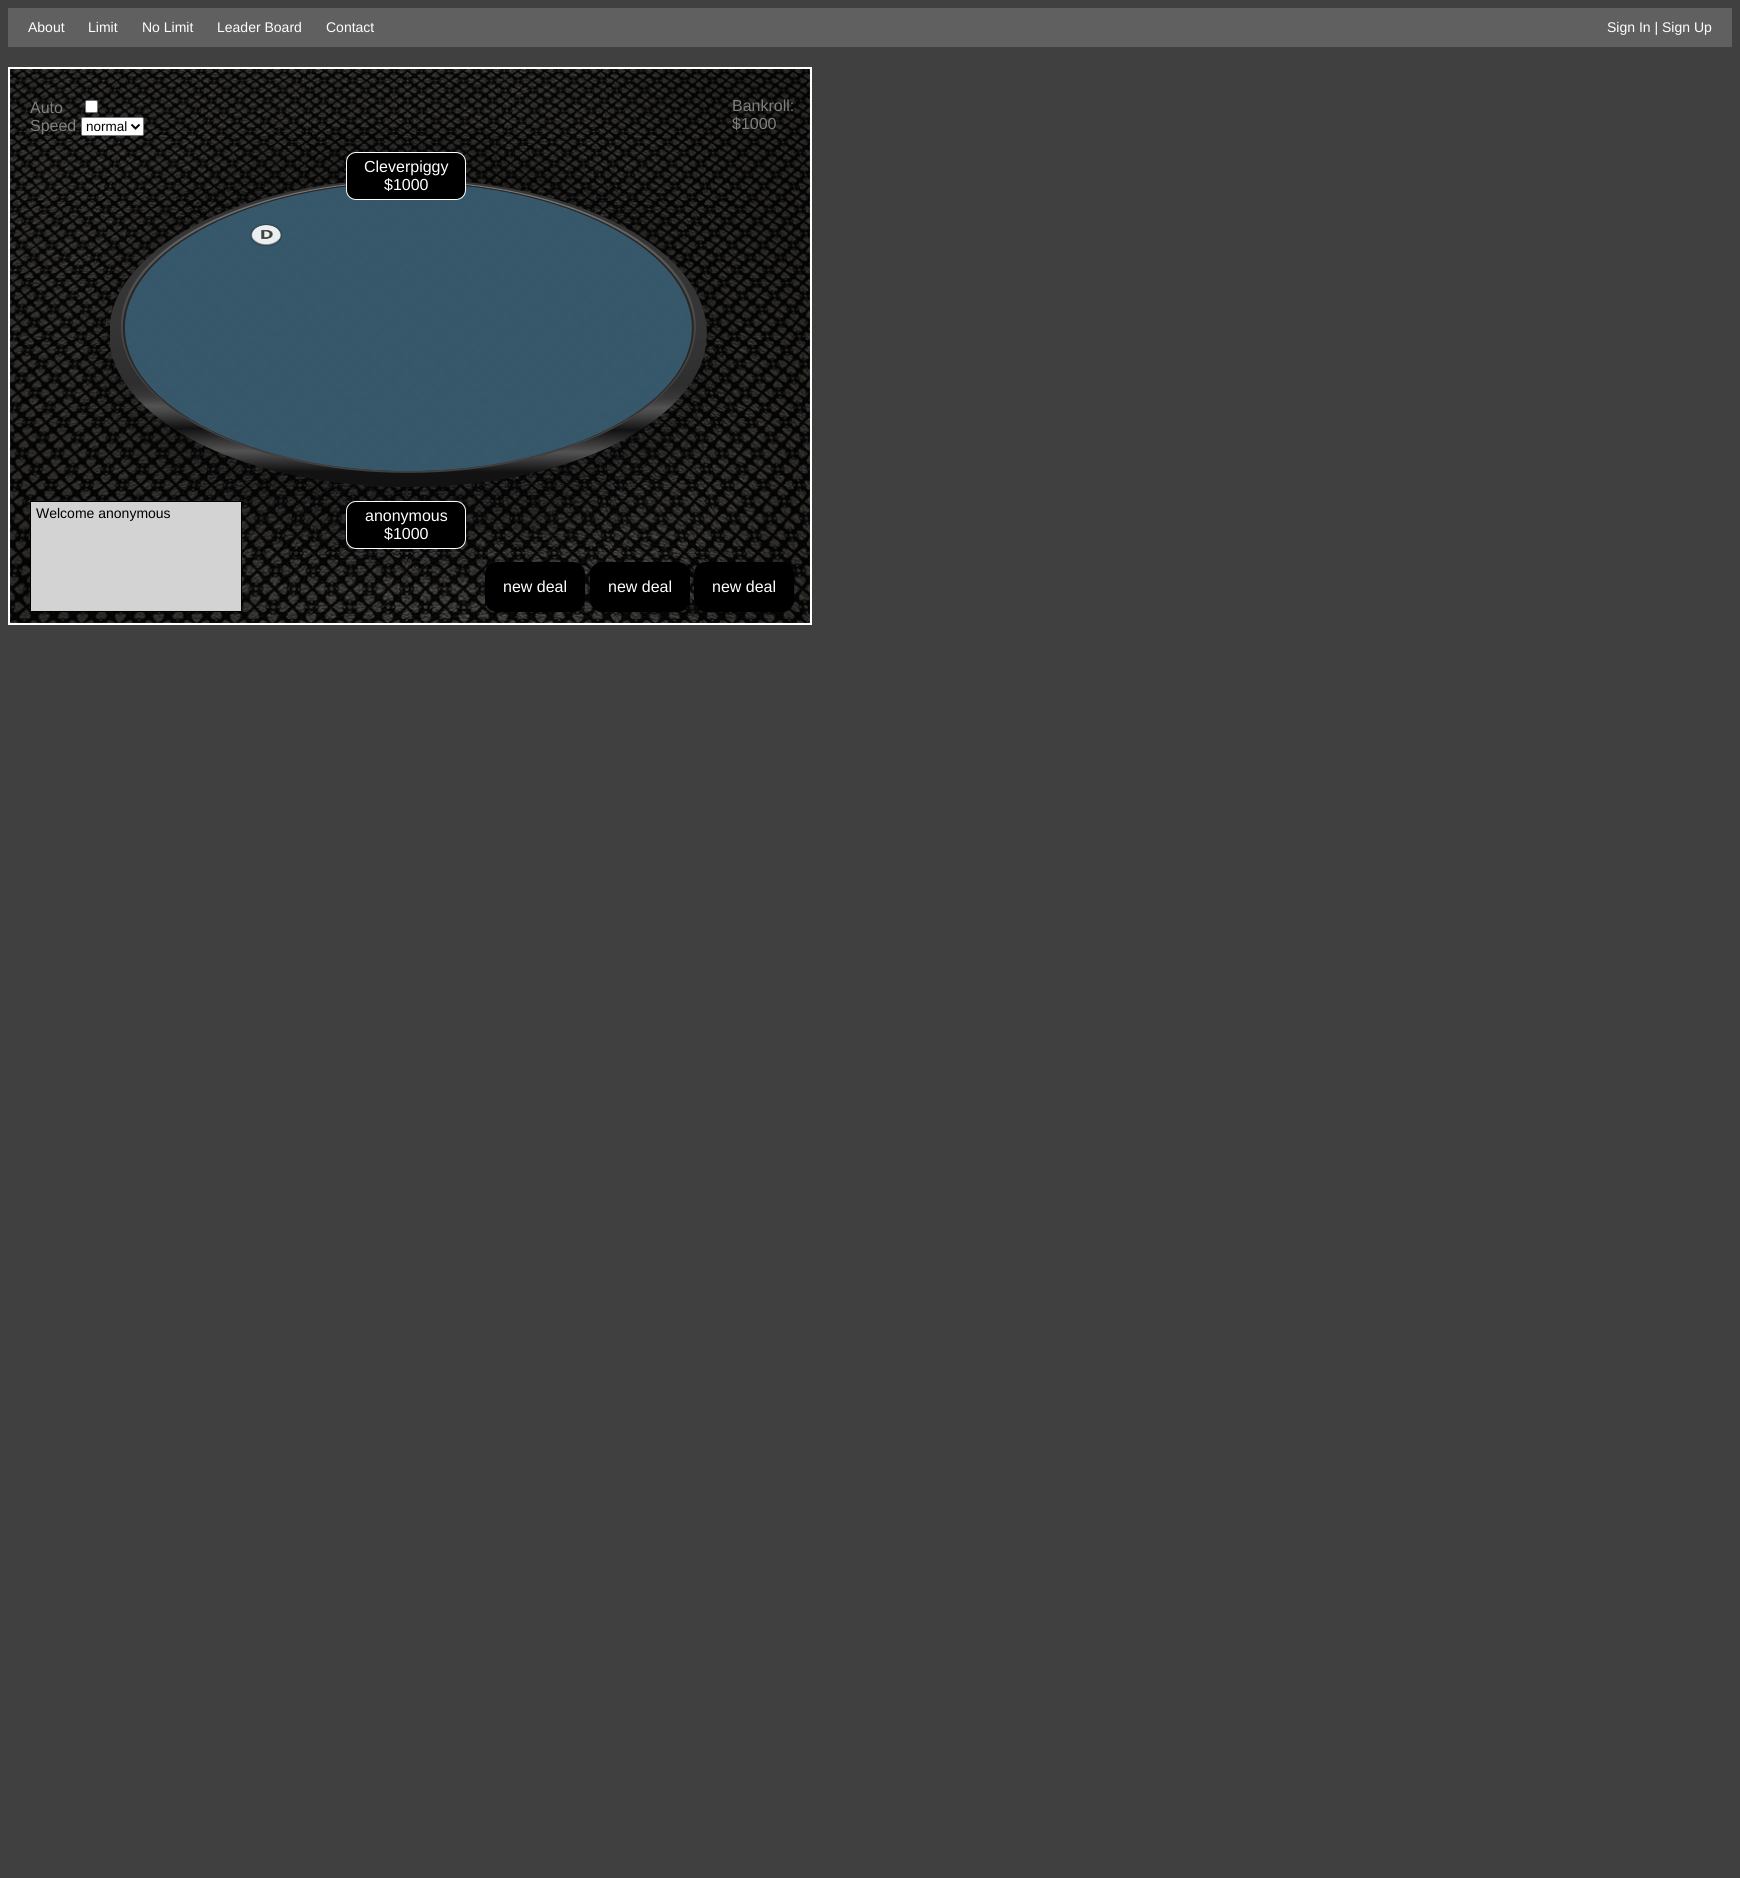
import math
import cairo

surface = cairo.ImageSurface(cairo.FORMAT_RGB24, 1740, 1878)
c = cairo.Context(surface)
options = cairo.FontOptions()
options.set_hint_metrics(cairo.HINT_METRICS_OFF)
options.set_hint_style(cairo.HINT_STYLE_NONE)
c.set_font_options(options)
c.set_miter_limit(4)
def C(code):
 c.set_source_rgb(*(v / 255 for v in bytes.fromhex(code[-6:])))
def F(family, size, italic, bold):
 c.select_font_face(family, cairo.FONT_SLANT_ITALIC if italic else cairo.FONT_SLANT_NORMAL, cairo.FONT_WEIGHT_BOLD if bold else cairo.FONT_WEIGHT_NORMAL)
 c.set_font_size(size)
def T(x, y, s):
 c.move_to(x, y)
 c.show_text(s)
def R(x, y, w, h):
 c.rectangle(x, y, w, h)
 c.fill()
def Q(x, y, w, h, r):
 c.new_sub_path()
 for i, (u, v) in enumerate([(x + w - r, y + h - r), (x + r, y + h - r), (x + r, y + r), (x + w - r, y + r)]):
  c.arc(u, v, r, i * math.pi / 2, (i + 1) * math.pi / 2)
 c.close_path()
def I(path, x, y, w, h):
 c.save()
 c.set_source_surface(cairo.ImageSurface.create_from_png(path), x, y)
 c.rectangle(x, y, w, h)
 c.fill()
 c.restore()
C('404040')
c.paint()
C('606060')
R(8,8,1724,39)
F('Liberation Sans',14,0,0)
C('ffffff')
T(28,32,'About')
T(88,32,'Limit')
T(142,32,'No Limit')
T(217,32,'Leader Board')
T(326,32,'Contact')
T(1607,32,'Sign In | Sign Up')
c.rectangle(9,68,802,556)
c.stroke()
I('1.png',10,69,800,554)
F('Liberation Sans',16,0,0)
C('808080')
T(30,113,'Auto')
C('ffffff')
Q(85.5,100.5,12,12,1.5)
c.fill_preserve()
C('767676')
c.set_line_width(1)
c.stroke()
C('808080')
T(30,131,'Speed')
C('ffffff')
Q(81.5,117.5,62,18,1.5)
c.fill_preserve()
C('767676')
c.stroke()
c.new_path()
c.move_to(131.5,124.5)
c.line_to(135.5,128.5)
c.line_to(139.5,124.5)
C('000000')
c.set_line_width(2)
c.stroke()
F('Liberation Sans',13.5,0,0)
T(86,131,'normal')
F('Liberation Sans',16,0,0)
C('808080')
T(732,111,'Bankroll:')
T(732,129,'$1000')
I('2.png',110,182,597,305)
C('000000')
Q(346.5,152.5,119,47,9.5)
c.fill_preserve()
C('ffffff')
c.set_line_width(1)
c.stroke()
T(364,172,'Cleverpiggy')
T(384,190,'$1000')
I('3.png',250,224,32,22)
C('d3d3d3')
c.rectangle(30.5,501.5,211,110)
c.fill_preserve()
C('000000')
c.stroke()
F('Liberation Sans',14,0,0)
T(36,518,'Welcome anonymous')
Q(346.5,501.5,119,47,9.5)
c.fill_preserve()
C('ffffff')
c.stroke()
F('Liberation Sans',16,0,0)
T(365,521,'anonymous')
T(384,539,'$1000')
C('000000')
Q(486,563,98,48,11)
c.fill_preserve()
c.set_line_width(2)
c.stroke()
C('ffffff')
T(503,592,'new deal')
C('000000')
Q(591,563,98,48,11)
c.fill_preserve()
c.stroke()
C('ffffff')
T(608,592,'new deal')
C('000000')
Q(695,563,98,48,11)
c.fill_preserve()
c.stroke()
C('ffffff')
T(712,592,'new deal')
surface.write_to_png('o.png')
